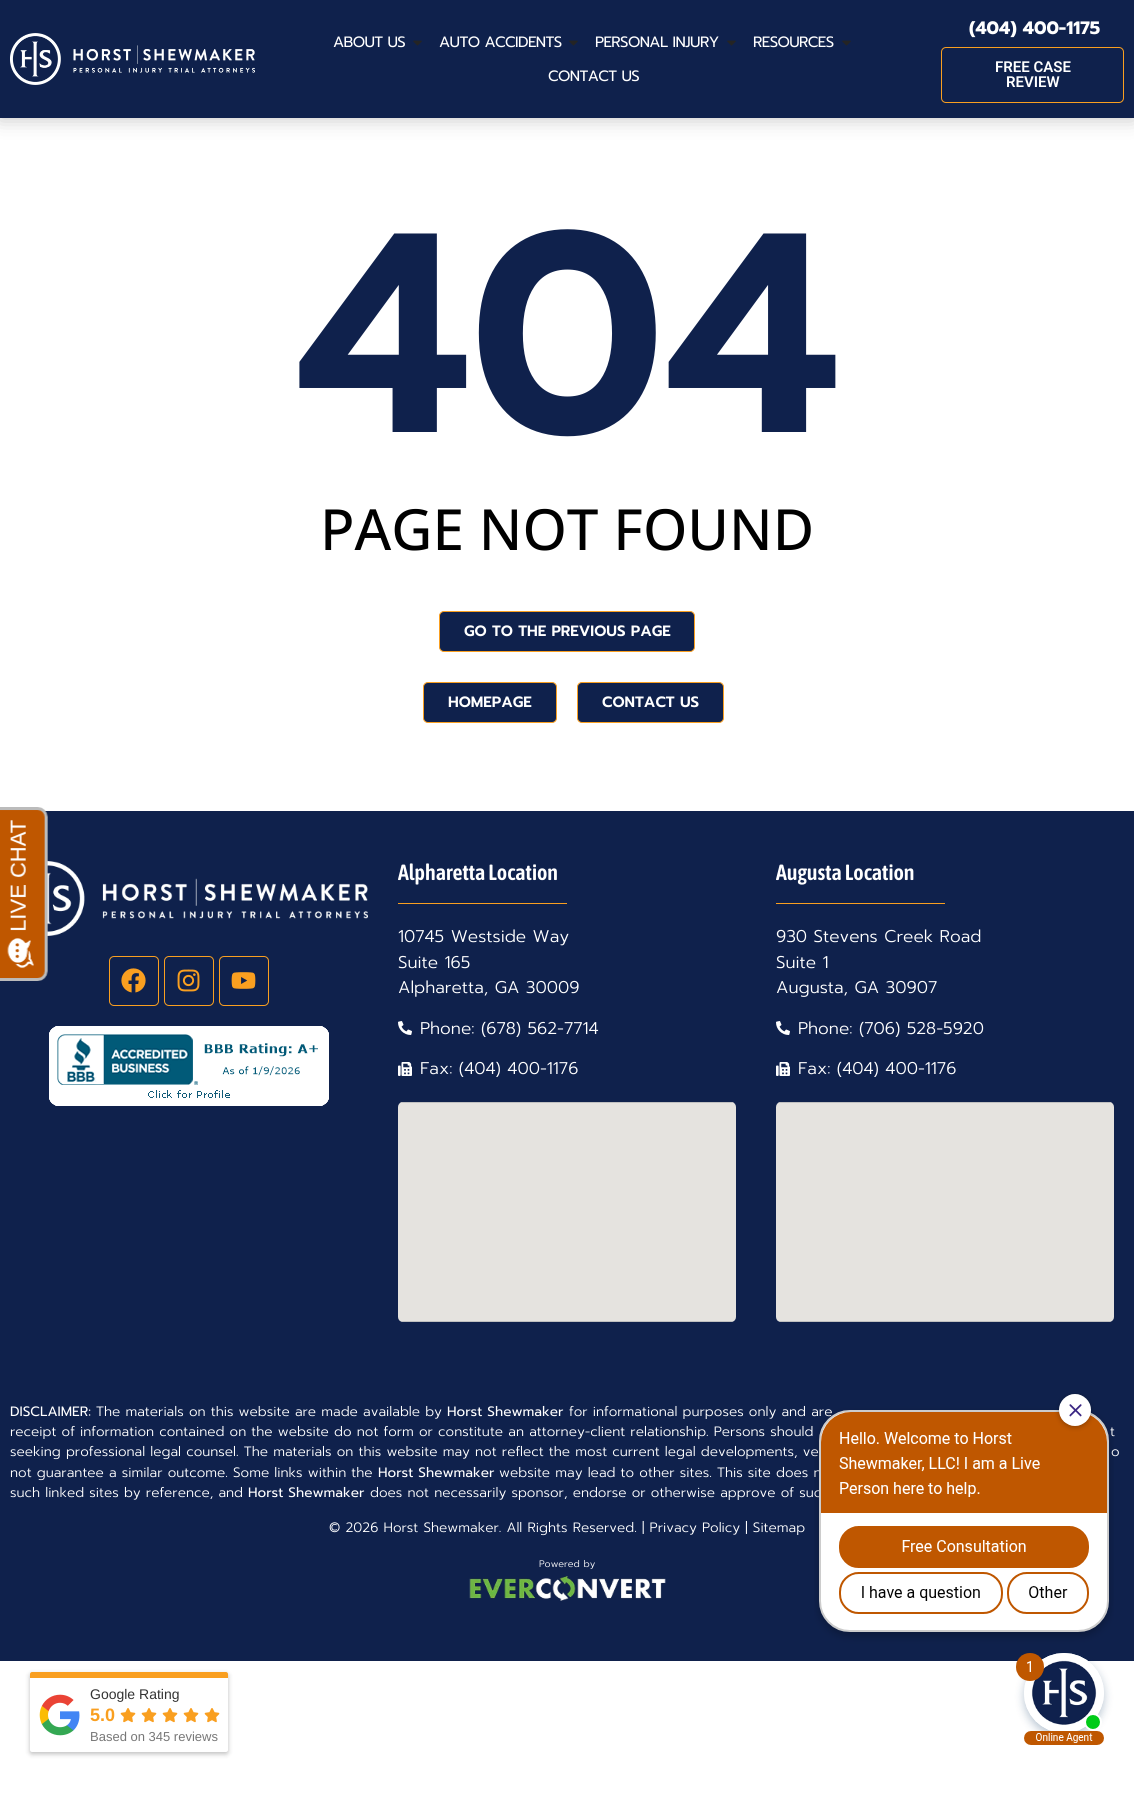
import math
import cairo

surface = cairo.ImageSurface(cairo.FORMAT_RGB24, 1134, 1807)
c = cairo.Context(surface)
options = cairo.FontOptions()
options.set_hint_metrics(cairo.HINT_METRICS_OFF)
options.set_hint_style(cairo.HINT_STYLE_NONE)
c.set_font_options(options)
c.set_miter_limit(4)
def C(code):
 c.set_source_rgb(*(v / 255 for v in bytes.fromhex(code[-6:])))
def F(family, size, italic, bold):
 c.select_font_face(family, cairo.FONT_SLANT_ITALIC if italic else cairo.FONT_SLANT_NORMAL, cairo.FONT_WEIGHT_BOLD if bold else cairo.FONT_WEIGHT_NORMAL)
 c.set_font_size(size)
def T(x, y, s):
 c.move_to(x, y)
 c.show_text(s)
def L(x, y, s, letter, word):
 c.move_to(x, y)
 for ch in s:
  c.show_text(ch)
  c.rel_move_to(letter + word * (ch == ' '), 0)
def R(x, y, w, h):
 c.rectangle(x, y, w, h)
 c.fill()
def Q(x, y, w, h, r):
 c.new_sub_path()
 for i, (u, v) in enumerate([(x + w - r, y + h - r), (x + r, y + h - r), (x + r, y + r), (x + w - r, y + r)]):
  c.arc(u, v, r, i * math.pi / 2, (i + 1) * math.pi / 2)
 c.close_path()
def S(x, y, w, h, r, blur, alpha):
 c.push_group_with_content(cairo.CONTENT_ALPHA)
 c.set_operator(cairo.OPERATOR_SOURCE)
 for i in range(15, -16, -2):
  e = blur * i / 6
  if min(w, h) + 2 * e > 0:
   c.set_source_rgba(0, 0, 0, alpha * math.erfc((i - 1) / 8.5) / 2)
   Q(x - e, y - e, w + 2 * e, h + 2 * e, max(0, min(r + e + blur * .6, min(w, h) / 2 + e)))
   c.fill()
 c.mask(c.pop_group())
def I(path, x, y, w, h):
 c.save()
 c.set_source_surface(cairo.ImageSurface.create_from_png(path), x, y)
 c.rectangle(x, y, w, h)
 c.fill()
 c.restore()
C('ffffff')
c.paint()
C('000000')
S(0,0,1134,118,0,10,.25)
C('0f214c')
R(0,0,1134,118)
I('1.png',10,33,245,52)
F('Prompt',15,0,0)
C('ffffff')
L(333,47,'ABOUT US',-.6,0)
I('2.png',413,40,9,6)
L(439,47,'AUTO ACCIDENTS',-.6,0)
I('2.png',569,40,9,6)
L(595,47,'PERSONAL INJURY',-.6,0)
I('2.png',727,40,9,6)
L(753,47,'RESOURCES',-.6,0)
I('2.png',842,40,9,6)
L(548,81,'CONTACT US',-.6,0)
F('Prompt',18,0,1)
T(969,34,'(404) 400-1175')
Q(941.5,47.5,182,55,4.5)
C('f99f20')
c.set_line_width(1)
c.stroke()
F('Roboto SemiBold',15,0,0)
C('ffffff')
T(995,72,'FREE CASE')
T(1006,87,'REVIEW')
F('Prompt SemiBold',284,0,0)
C('0f214c')
T(296,432,'404')
F('Open Sans Medium',56.75,0,0)
C('000000')
T(320,550,'PAGE NOT FOUND')
C('0f214c')
Q(439.5,611.5,255,40,4.5)
c.fill_preserve()
C('f99f20')
c.stroke()
F('Prompt SemiBold',15,0,0)
C('ffffff')
T(464,636,'GO TO THE PREVIOUS PAGE')
C('0f214c')
Q(423.5,682.5,133,40,4.5)
c.fill_preserve()
C('f99f20')
c.stroke()
C('ffffff')
T(448,707,'HOMEPAGE')
C('0f214c')
Q(577.5,682.5,146,40,4.5)
c.fill_preserve()
C('f99f20')
c.stroke()
C('ffffff')
T(602,707,'CONTACT US')
C('0f214c')
R(0,811,1134,850)
I('4.png',47,861,321,75)
I('3.png',0,807,48,174)
Q(109.5,956.5,49,49,4.5)
C('f99f20')
c.stroke()
I('5.png',121,968,25,25)
Q(164.5,956.5,49,49,4.5)
c.stroke()
I('6.png',177,969,23,23)
Q(219.5,956.5,49,49,4.5)
c.stroke()
I('7.png',231,972,25,17)
I('8.png',49,1026,280,80)
F('Asap Condensed SemiBold',22,0,0)
C('ffffff')
T(398,880,'Alpharetta Location')
C('f99f20')
R(398,903,169,1)
F('Prompt Light',17,0,0)
C('ffffff')
T(398,942,'10745 Westside Way')
T(398,968,'Suite 165')
T(398,993,'Alpharetta, GA 30009')
I('9.png',398,1021,14,14)
T(420,1034,'Phone: (678) 562-7714')
I('10.png',398,1062,14,14)
T(420,1074,'Fax: (404) 400-1176')
I('11.png',398,1102,338,220)
F('Asap Condensed SemiBold',22,0,0)
T(776,880,'Augusta Location')
C('f99f20')
R(776,903,169,1)
F('Prompt Light',17,0,0)
C('ffffff')
T(776,942,'930 Stevens Creek Road')
T(776,968,'Suite 1')
T(776,993,'Augusta, GA 30907')
I('9.png',776,1021,14,14)
T(798,1034,'Phone: (706) 528-5920')
I('10.png',776,1062,14,14)
T(798,1074,'Fax: (404) 400-1176')
I('12.png',776,1102,338,220)
F('Prompt',13.6,0,0)
T(10,1416,'DISCLAIMER:')
F('Prompt Light',13.6,0,0)
T(96,1416,'The materials on this website are made available by')
F('Prompt',13.6,0,0)
T(447,1416,'Horst Shewmaker')
F('Prompt Light',13.6,0,0)
T(569,1416,'for informational purposes only and are')
T(10,1436,'receipt of information contained on the website do not form or constitute an attorney-client relationship. Persons should')
T(1110,1436,'t')
T(10,1456,'seeking professional legal counsel. The materials on this website may not reflect the most current legal developments, ve')
T(1111,1456,'o')
T(10,1477,'not guarantee a similar outcome. Some links within the')
F('Prompt',13.6,0,0)
T(378,1477,'Horst Shewmaker')
F('Prompt Light',13.6,0,0)
T(499,1477,'website may lead to other sites. This site does n')
T(10,1497,'such linked sites by reference, and')
F('Prompt',13.6,0,0)
T(248,1497,'Horst Shewmaker')
F('Prompt Light',13.6,0,0)
T(370,1497,'does not necessarily sponsor, endorse or otherwise approve of suc')
T(329,1532,'© 2026 Horst Shewmaker. All Rights Reserved. | Privacy Policy | Sitemap')
F('Prompt Light',9.5,0,0)
T(539,1567,'Powered by')
I('13.png',469,1576,197,25)
C('000000')
S(30,1674,198,80,2,2.5,.26)
C('f99f20')
c.new_path()
c.move_to(32,1672)
c.line_to(226,1672)
c.curve_to(227,1672,228,1673,228,1674)
c.line_to(228,1678)
c.line_to(30,1678)
c.line_to(30,1674)
c.curve_to(30,1673,31,1672,32,1672)
c.close_path()
c.fill()
C('ffffff')
c.new_path()
c.move_to(30,1678)
c.line_to(228,1678)
c.line_to(228,1750)
c.curve_to(228,1751,227,1752,226,1752)
c.line_to(32,1752)
c.curve_to(31,1752,30,1751,30,1750)
c.close_path()
c.fill()
I('14.png',39,1694,41,42)
F('Liberation Sans',14,0,0)
C('333333')
T(90,1699,'Google Rating')
F('Liberation Sans',18,0,1)
C('f99f20')
T(90,1721,'5.0')
I('15.png',120,1708,16,15)
I('15.png',141,1708,16,15)
I('15.png',162,1708,16,15)
I('15.png',183,1708,16,15)
I('15.png',204,1708,16,15)
F('Liberation Sans',13,0,0)
C('777777')
T(90,1741,'Based on 345 reviews')
I('16.png',814,1393,300,352)
surface.write_to_png('o.png')
